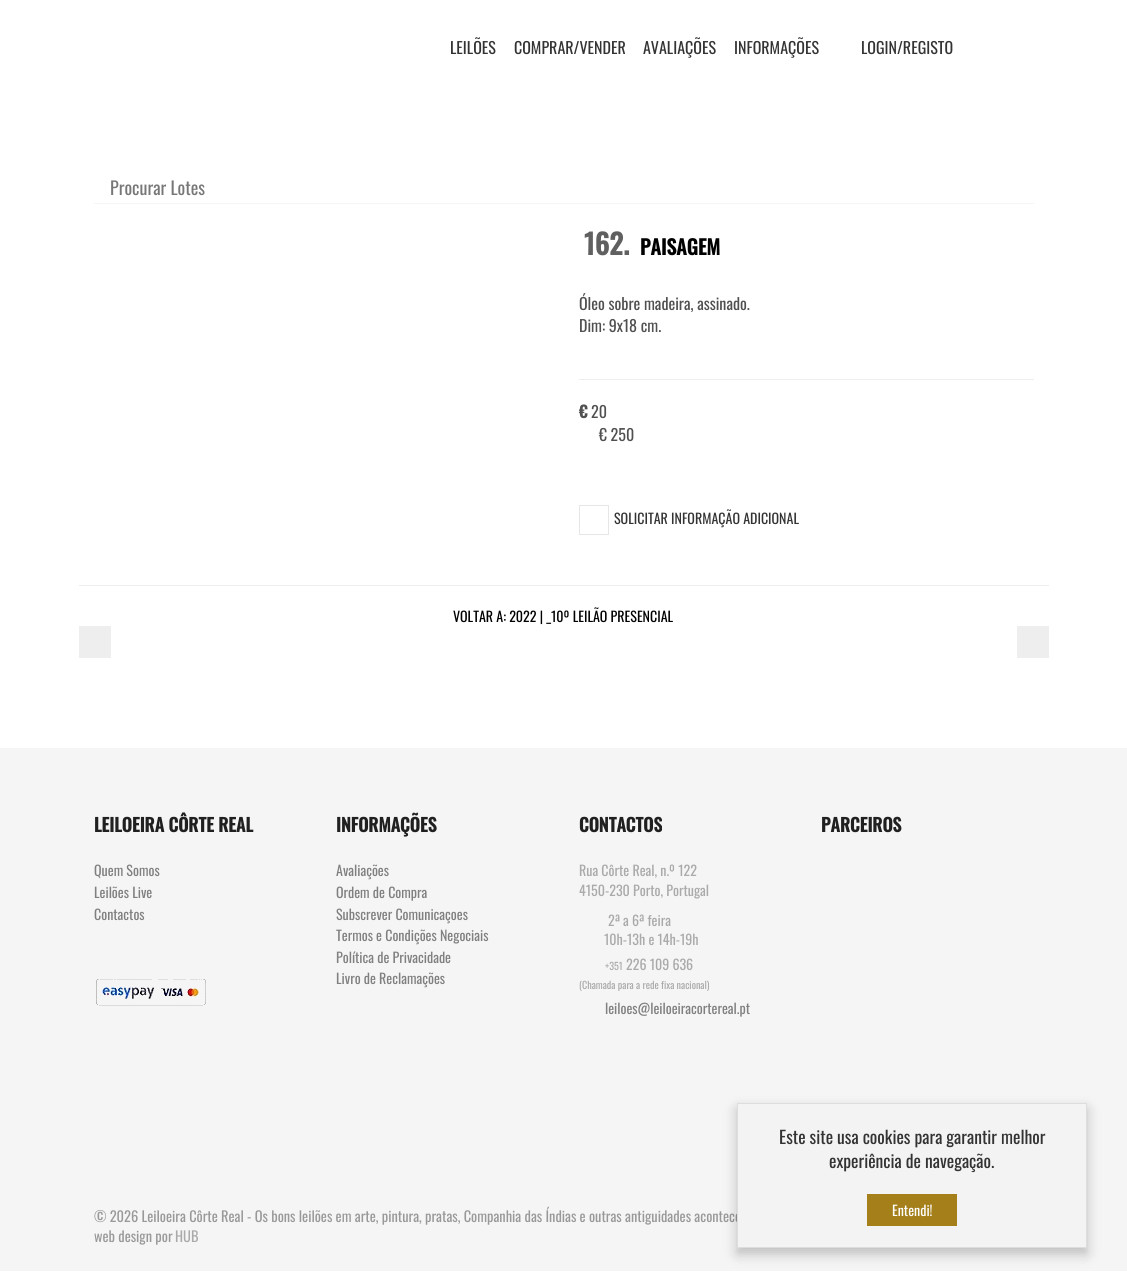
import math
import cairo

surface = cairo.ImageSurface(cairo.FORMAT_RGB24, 1127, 1288)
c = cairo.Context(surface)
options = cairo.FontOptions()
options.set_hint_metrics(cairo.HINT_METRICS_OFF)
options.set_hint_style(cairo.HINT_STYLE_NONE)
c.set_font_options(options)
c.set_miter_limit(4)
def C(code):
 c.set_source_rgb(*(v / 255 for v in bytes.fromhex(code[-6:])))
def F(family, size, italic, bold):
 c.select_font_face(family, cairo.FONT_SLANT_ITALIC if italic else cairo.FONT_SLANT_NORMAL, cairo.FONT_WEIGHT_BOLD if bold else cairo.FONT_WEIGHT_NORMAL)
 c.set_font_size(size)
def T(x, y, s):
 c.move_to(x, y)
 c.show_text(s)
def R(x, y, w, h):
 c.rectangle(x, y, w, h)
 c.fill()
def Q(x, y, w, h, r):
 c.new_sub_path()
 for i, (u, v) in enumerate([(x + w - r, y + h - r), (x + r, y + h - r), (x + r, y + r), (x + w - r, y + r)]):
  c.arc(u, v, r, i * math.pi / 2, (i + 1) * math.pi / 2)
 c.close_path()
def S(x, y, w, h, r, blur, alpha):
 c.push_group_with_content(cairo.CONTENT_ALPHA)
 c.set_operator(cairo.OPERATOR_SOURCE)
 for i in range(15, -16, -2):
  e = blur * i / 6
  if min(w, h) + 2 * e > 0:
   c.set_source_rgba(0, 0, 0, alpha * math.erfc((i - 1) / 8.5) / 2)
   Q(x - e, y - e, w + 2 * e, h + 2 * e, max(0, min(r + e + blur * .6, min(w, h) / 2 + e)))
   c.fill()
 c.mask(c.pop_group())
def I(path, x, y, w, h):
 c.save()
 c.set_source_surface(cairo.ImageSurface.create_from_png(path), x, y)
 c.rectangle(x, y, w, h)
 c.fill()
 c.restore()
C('ffffff')
c.paint()
F('Oswald',16,0,0)
C('333333')
T(450,54,'LEILÕES')
T(514,54,'COMPRAR/VENDER')
T(643,54,'AVALIAÇÕES')
T(734,54,'INFORMAÇÕES')
T(861,54,'LOGIN/REGISTO')
C('f5f5f5')
R(94,203,940,1)
F('Oswald',18,0,0)
C('777777')
T(110,195,'Procurar Lotes')
F('Oswald',28,0,1)
C('606060')
T(584,255,'162.')
F('Oswald',20,0,1)
C('000000')
T(640,255,'PAISAGEM')
F('Oswald',16,0,0)
C('505050')
T(579,310,'Óleo sobre madeira, assinado.')
T(579,332,'Dim: 9x18 cm.')
C('eeeeee')
R(579,379,455,1)
F('Oswald',16,0,1)
C('505050')
T(579,418,'€')
F('Oswald',16,0,0)
T(591,418,'20')
T(599,441,'€ 250')
c.rectangle(579.5,505.5,29,29)
C('e6e6e6')
c.set_line_width(1)
c.stroke()
F('Oswald',14,0,0)
C('333333')
T(614,524,'SOLICITAR INFORMAÇÃO ADICIONAL')
C('eeeeee')
R(79,585,970,1)
C('000000')
T(453,622,'VOLTAR A: 2022 | _10º LEILÃO PRESENCIAL')
C('eeeeee')
R(79,626,32,32)
R(1017,626,32,32)
C('f5f5f5')
R(0,748,1127,523)
F('Oswald',18,0,1)
C('202020')
T(94,832,'LEILOEIRA CÔRTE REAL')
F('Oswald',14,0,0)
C('808080')
T(94,876,'Quem Somos')
T(94,898,'Leilões Live')
T(94,920,'Contactos')
I('1.png',96,979,110,27)
F('Oswald',18,0,1)
C('202020')
T(336,832,'INFORMAÇÕES')
F('Oswald',14,0,0)
C('808080')
T(336,876,'Avaliações')
T(336,898,'Ordem de Compra')
T(336,920,'Subscrever Comunicaçoes')
T(336,941,'Termos e Condições Negociais')
T(336,963,'Política de Privacidade')
T(336,984,'Livro de Reclamações')
F('Oswald',18,0,1)
C('202020')
T(579,832,'CONTACTOS')
F('Oswald',14,0,0)
C('aaaaaa')
T(579,876,'Rua Côrte Real, n.º 122')
T(579,896,'4150-230 Porto, Portugal')
T(608,926,'2ª a 6ª feira')
T(604,945,'10h-13h e 14h-19h')
F('Oswald',10.1,0,0)
T(605,970,'+351')
F('Oswald',14,0,0)
T(626,970,'226 109 636')
F('Oswald',10.1,0,0)
T(579,989,'(Chamada para a rede fixa nacional)')
F('Oswald',14,0,0)
C('808080')
T(605,1014,'leiloes@leiloeiracortereal.pt')
F('Oswald',18,0,1)
C('202020')
T(821,832,'PARCEIROS')
F('Oswald',14.4,0,0)
C('999999')
T(94,1222,'© 2026 Leiloeira Côrte Real - Os bons leilões em arte, pintura, pratas, Companhia das Índias e outras antiguidades acontece')
T(94,1242,'web design por')
C('aaaaaa')
T(175,1242,'HUB')
C('000000')
S(737,1109,350,145,0,6.5,.23)
C('f3f3f3')
c.rectangle(737.5,1103.5,349,144)
c.fill_preserve()
C('dddddd')
c.stroke()
F('Oswald',17.6,0,0)
C('333333')
T(779,1144,'Este site usa cookies para garantir melhor')
T(829,1168,'experiência de navegação.')
C('a47f1a')
R(867,1194,90,32)
F('Oswald',14,0,0)
C('fefefe')
T(892,1216,'Entendi!')
surface.write_to_png('o.png')
